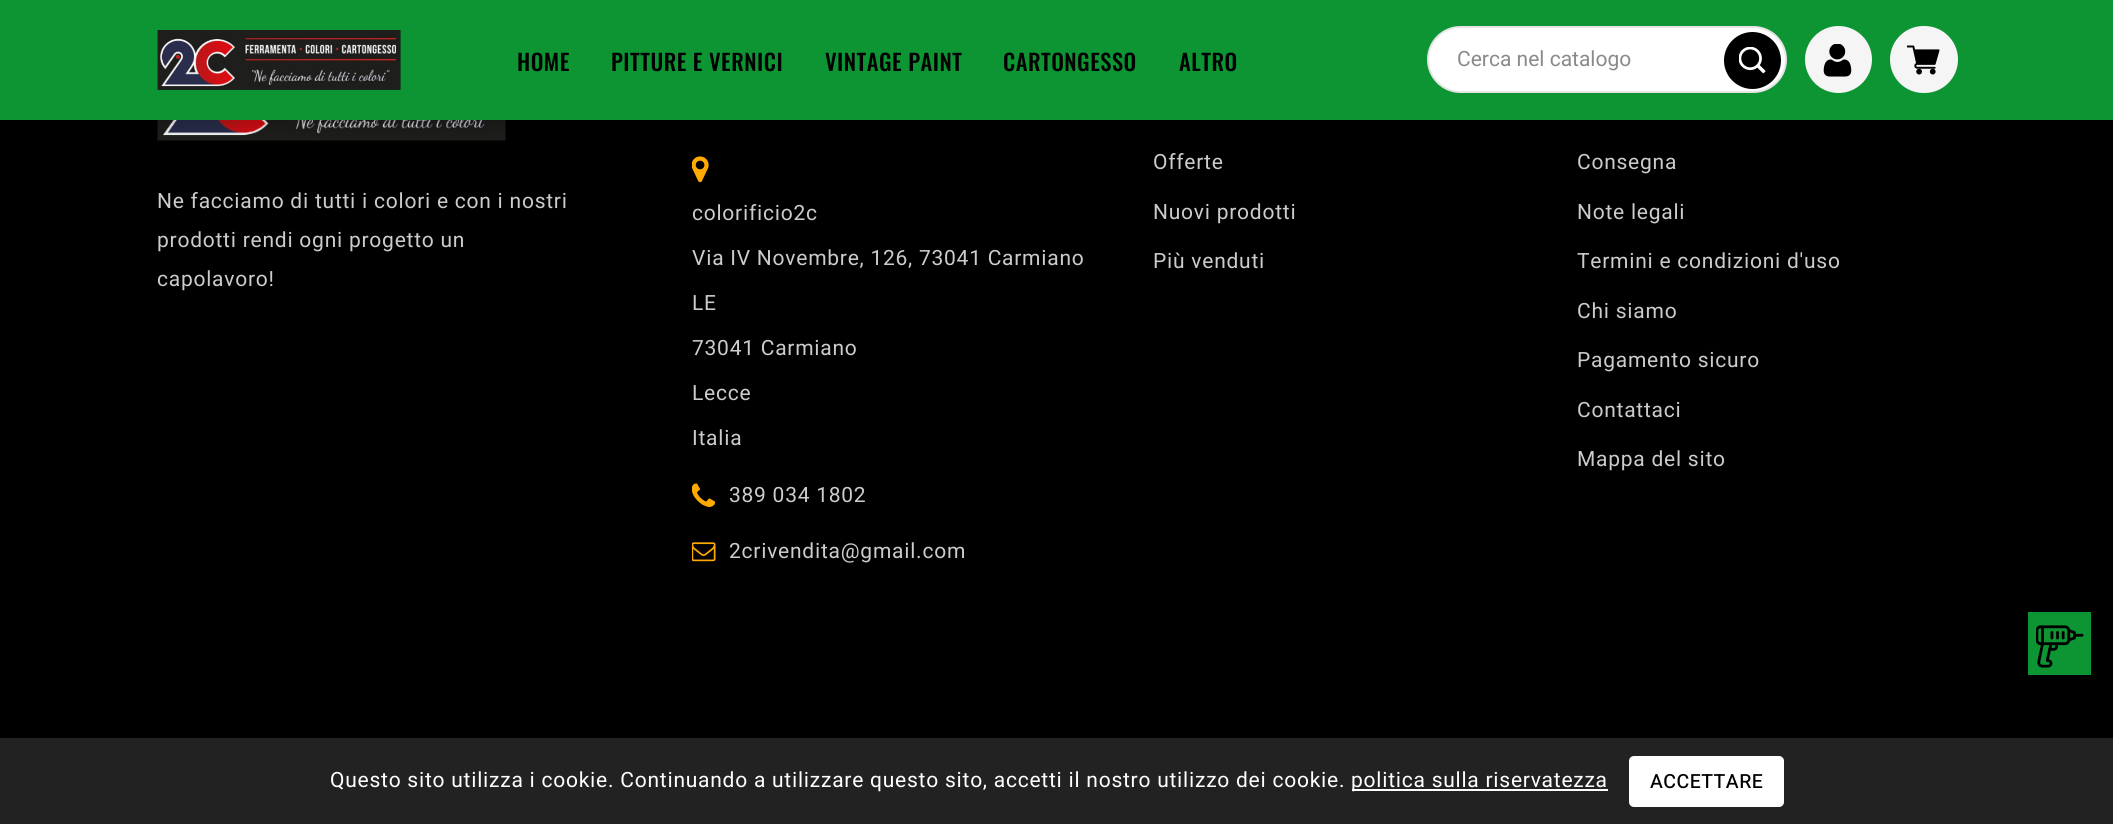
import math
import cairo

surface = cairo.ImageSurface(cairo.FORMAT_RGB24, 2113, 824)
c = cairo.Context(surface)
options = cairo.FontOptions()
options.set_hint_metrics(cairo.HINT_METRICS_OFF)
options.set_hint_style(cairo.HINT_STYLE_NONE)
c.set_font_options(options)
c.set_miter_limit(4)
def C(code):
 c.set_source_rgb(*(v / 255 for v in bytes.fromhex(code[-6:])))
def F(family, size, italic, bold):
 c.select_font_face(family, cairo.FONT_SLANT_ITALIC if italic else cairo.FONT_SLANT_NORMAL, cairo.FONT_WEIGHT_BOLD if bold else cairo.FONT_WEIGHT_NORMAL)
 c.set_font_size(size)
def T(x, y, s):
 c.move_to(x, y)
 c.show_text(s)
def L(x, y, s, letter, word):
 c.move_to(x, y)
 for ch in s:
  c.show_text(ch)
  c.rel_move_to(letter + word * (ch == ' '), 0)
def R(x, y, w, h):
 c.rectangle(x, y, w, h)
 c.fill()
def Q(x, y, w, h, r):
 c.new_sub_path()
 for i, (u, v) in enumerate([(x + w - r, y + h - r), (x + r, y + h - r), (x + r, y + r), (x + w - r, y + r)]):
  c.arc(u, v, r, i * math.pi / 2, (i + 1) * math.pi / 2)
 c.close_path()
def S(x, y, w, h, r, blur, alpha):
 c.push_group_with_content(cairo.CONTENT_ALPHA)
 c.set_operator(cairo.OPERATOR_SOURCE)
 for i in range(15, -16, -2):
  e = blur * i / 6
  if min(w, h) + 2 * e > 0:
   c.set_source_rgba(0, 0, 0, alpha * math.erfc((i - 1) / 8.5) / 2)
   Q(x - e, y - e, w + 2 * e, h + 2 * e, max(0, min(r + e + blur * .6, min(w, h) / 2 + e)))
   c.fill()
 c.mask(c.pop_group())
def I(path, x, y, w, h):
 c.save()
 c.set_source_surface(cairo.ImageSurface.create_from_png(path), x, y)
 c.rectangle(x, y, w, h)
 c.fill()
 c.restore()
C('000000')
c.paint()
I('5.png',157,120,349,21)
I('6.png',692,156,17,27)
S(0,6,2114,120,0,12,.27)
C('0d9534')
R(0,0,2113,120)
I('1.png',157,30,244,60)
F('Oswald Medium',22.5,0,0)
C('000000')
L(517,71,'HOME',.5,0)
L(611,71,'PITTURE E VERNICI',.5,0)
L(825,71,'VINTAGE PAINT',.5,0)
L(1003,71,'CARTONGESSO',.5,0)
L(1179,71,'ALTRO',.5,0)
C('ffffff')
Q(1428,27,358,65,32.5)
c.fill_preserve()
C('e5e5e5')
c.stroke()
F('Heebo',21,0,0)
C('8a8a8a')
T(1457,66,'Cerca nel catalogo')
C('000000')
c.new_path()
c.arc(1752.5,60.5,28.5,0,2 * math.pi)
c.fill()
I('2.png',1739,47,27,27)
C('f5f5f5')
c.arc(1838.5,59.5,33.5,0,2 * math.pi)
c.fill()
I('3.png',1823,44,29,33)
Q(1890,26,68,67,33.5)
c.fill()
I('4.png',1907,45,33,30)
C('cccccc')
L(157,208,'Ne facciamo di tutti i colori e con i nostri',.75,0)
L(157,247,'prodotti rendi ogni progetto un',.75,0)
L(157,286,'capolavoro!',.75,0)
L(692,220,'colorificio2c',.75,0)
L(692,265,'Via IV Novembre, 126, 73041 Carmiano',.75,0)
L(692,310,'LE',.75,0)
L(692,355,'73041 Carmiano',.75,0)
L(692,400,'Lecce',.75,0)
L(692,445,'Italia',.75,0)
I('7.png',692,483,23,24)
L(729,502,'389 034 1802',.75,0)
I('8.png',692,542,24,20)
L(729,558,'2crivendita@gmail.com',.75,0)
L(1153,169,'Offerte',.75,0)
L(1153,219,'Nuovi prodotti',.75,0)
L(1153,268,'Più venduti',.75,0)
L(1577,169,'Consegna',.75,0)
L(1577,219,'Note legali',.75,0)
L(1577,268,'Termini e condizioni d\'uso',.75,0)
L(1577,318,'Chi siamo',.75,0)
L(1577,367,'Pagamento sicuro',.75,0)
L(1577,417,'Contattaci',.75,0)
L(1577,466,'Mappa del sito',.75,0)
C('222222')
R(0,738,2113,86)
C('ffffff')
L(330,787,'Questo sito utilizza i cookie. Continuando a utilizzare questo sito, accetti il nostro utilizzo dei cookie.',.75,0)
R(1352,789,256,2)
L(1351,787,'politica sulla riservatezza',.75,0)
Q(1629,756,155,51,5)
c.fill()
F('Heebo Medium',19.5,0,0)
C('000000')
L(1650,788,'ACCETTARE',.5,0)
C('0d9534')
R(2028,612,63,63)
I('9.png',2036,625,48,43)
surface.write_to_png('o.png')
